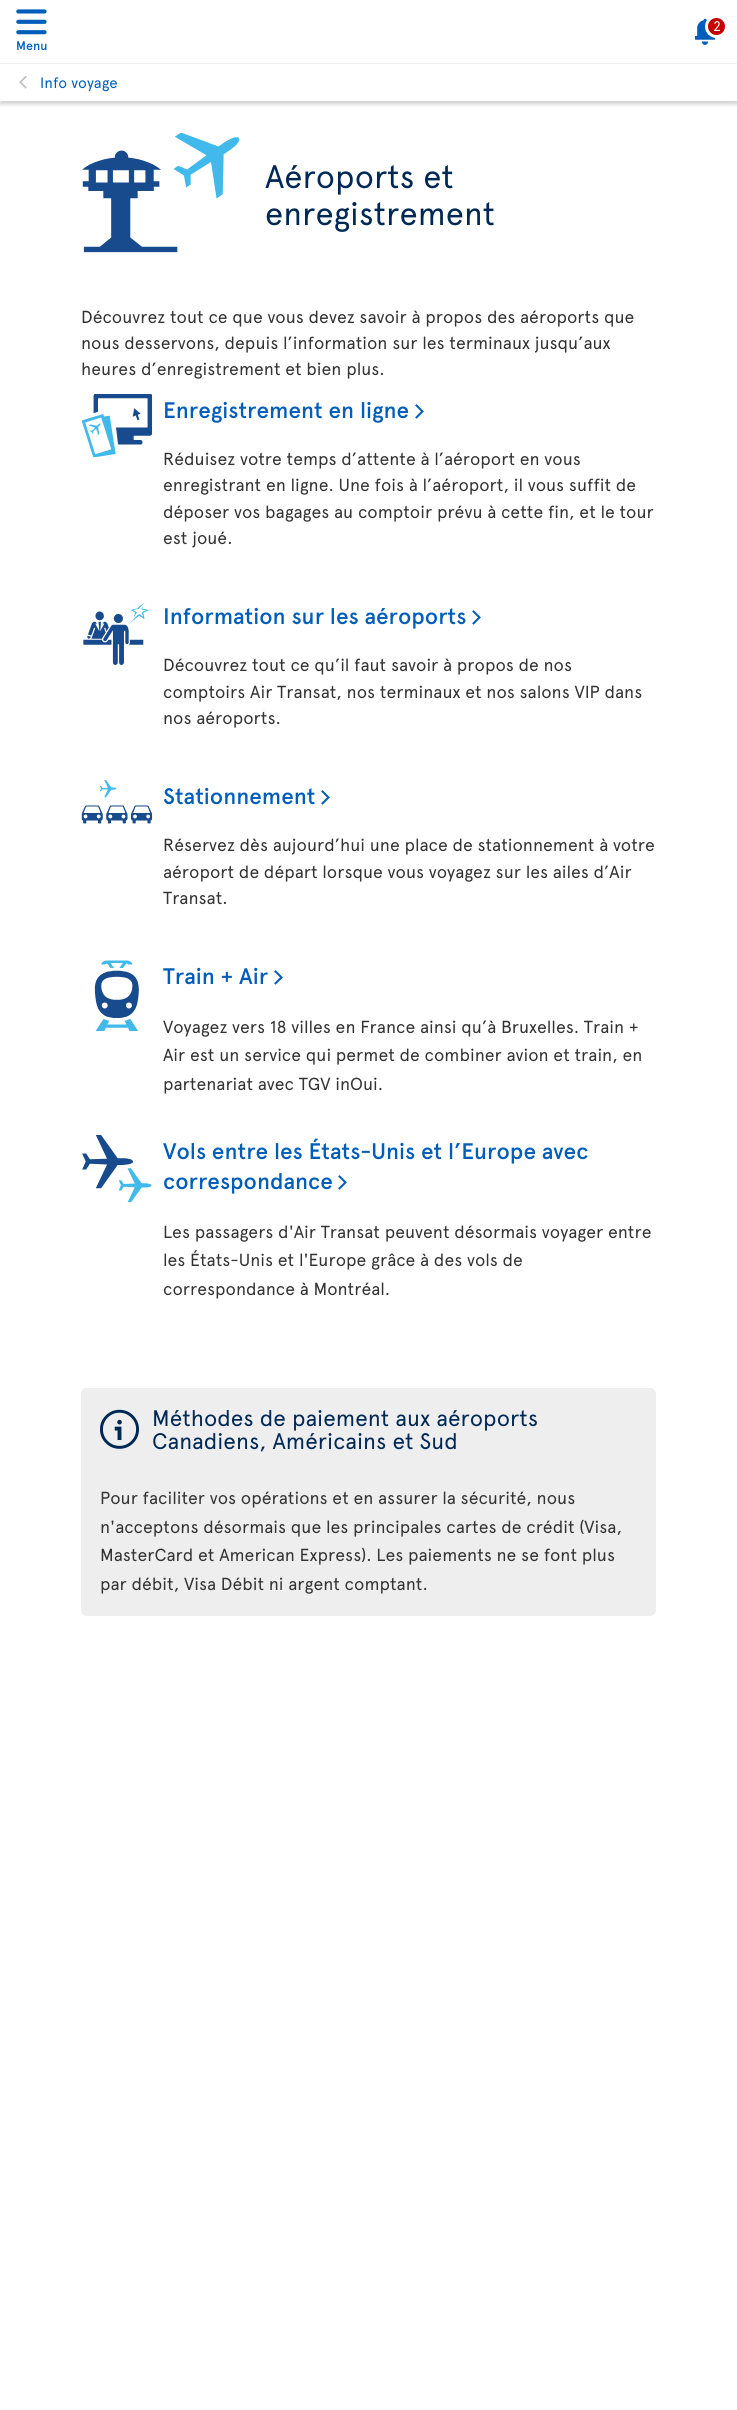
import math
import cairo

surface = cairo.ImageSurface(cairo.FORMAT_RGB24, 737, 2410)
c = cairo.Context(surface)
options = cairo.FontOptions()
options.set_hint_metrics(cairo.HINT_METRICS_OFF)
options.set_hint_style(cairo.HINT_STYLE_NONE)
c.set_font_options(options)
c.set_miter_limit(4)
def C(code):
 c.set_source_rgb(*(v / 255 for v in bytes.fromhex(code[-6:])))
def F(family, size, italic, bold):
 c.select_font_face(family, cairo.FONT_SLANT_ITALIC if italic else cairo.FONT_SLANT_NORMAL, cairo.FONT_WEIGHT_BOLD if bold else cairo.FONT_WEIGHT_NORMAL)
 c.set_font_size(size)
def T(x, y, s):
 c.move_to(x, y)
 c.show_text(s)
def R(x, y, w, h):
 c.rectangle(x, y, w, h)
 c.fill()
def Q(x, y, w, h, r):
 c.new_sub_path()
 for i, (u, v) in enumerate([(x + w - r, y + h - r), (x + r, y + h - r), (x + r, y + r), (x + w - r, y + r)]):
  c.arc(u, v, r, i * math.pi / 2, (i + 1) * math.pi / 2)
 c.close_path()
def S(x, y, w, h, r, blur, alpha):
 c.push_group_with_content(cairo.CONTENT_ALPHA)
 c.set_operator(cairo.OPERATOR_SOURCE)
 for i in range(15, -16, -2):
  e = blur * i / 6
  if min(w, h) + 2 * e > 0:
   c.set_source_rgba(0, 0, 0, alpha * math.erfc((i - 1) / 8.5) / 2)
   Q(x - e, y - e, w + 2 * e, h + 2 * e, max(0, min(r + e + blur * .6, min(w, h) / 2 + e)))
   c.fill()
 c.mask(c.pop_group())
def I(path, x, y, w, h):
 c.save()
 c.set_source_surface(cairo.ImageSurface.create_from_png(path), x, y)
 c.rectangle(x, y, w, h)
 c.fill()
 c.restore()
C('ffffff')
c.paint()
c.save()
c.rectangle(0,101,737,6)
c.clip()
C('000000')
S(0,3,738,101,0,2.5,.2)
c.restore()
I('1.png',695,18,21,27)
C('c50000')
c.arc(716.5,26.5,10,0,2 * math.pi)
c.fill_preserve()
C('ffffff')
c.set_line_width(3)
c.stroke()
F('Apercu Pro',14,0,0)
T(713,31,'2')
I('2.png',16,9,31,26)
F('Apercu Pro Medium',12.5,0,0)
C('005eba')
T(16,50,'Menu')
C('eeeeee')
R(0,63,737,1)
F('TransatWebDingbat',20,0,0)
C('c2c2c2')
T(19,88,'<')
F('Apercu Pro',15,0,0)
C('005eba')
T(40,88,'Info voyage')
I('3.png',82,133,158,120)
F('Apercu Pro',32.5,0,0)
C('002855')
T(265,188,'Aéroports et')
T(265,225,'enregistrement')
F('Apercu Pro',17.5,0,0)
C('333333')
T(81,323,'Découvrez tout ce que vous devez savoir à propos des aéroports que')
T(81,349,'nous desservons, depuis l’information sur les terminaux jusqu’aux')
T(81,375,'heures d’enregistrement et bien plus.')
I('4.png',81,394,72,64)
F('Apercu Pro Medium',22.5,0,0)
C('005eba')
T(163,418,'Enregistrement en ligne')
F('TransatWebDingbat',22.5,0,0)
T(414,418,'>')
F('Apercu Pro',17.5,0,0)
C('333333')
T(163,465,'Réduisez votre temps d’attente à l’aéroport en vous')
T(163,491,'enregistrant en ligne. Une fois à l’aéroport, il vous suffit de')
T(163,518,'déposer vos bagages au comptoir prévu à cette fin, et le tour')
T(163,544,'est joué.')
I('5.png',83,603,66,62)
F('Apercu Pro Medium',22.5,0,0)
C('005eba')
T(163,624,'Information sur les aéroports')
F('TransatWebDingbat',22.5,0,0)
T(471,624,'>')
F('Apercu Pro',17.5,0,0)
C('333333')
T(163,671,'Découvrez tout ce qu’il faut savoir à propos de nos')
T(163,698,'comptoirs Air Transat, nos terminaux et nos salons VIP dans')
T(163,724,'nos aéroports.')
I('6.png',81,780,72,44)
F('Apercu Pro Medium',22.5,0,0)
C('005eba')
T(163,804,'Stationnement')
F('TransatWebDingbat',22.5,0,0)
T(320,804,'>')
F('Apercu Pro',17.5,0,0)
C('333333')
T(163,851,'Réservez dès aujourd’hui une place de stationnement à votre')
T(163,878,'aéroport de départ lorsque vous voyagez sur les ailes d’Air')
T(163,904,'Transat.')
I('7.png',94,960,45,71)
F('Apercu Pro Medium',22.5,0,0)
C('005eba')
T(163,984,'Train + Air')
F('TransatWebDingbat',22.5,0,0)
T(273,984,'>')
F('Apercu Pro',17.5,0,0)
C('333333')
T(163,1033,'Voyagez vers 18 villes en France ainsi qu’à Bruxelles. Train +')
T(163,1061,'Air est un service qui permet de combiner avion et train, en')
T(163,1090,'partenariat avec TGV inOui.')
I('8.png',82,1135,70,68)
F('Apercu Pro Medium',22.5,0,0)
C('005eba')
T(163,1159,'Vols entre les États-Unis et l’Europe avec')
T(163,1189,'correspondance')
F('TransatWebDingbat',22.5,0,0)
T(337,1189,'>')
F('Apercu Pro',17.5,0,0)
C('333333')
T(163,1238,'Les passagers d\'Air Transat peuvent désormais voyager entre')
T(163,1266,'les États-Unis et l\'Europe grâce à des vols de')
T(163,1295,'correspondance à Montréal.')
C('eeeeee')
Q(81,1388,575,228,6)
c.fill()
F('TransatWebDingbat',50,0,0)
C('002855')
T(100,1444,'ý')
F('Apercu Pro',22.5,0,0)
T(152,1426,'Méthodes de paiement aux aéroports')
T(152,1449,'Canadiens, Américains et Sud')
F('Apercu Pro',17.5,0,0)
C('333333')
T(100,1504,'Pour faciliter vos opérations et en assurer la sécurité, nous')
T(100,1533,'n\'acceptons désormais que les principales cartes de crédit (Visa,')
T(100,1561,'MasterCard et American Express). Les paiements ne se font plus')
T(100,1590,'par débit, Visa Débit ni argent comptant.')
surface.write_to_png('o.png')
